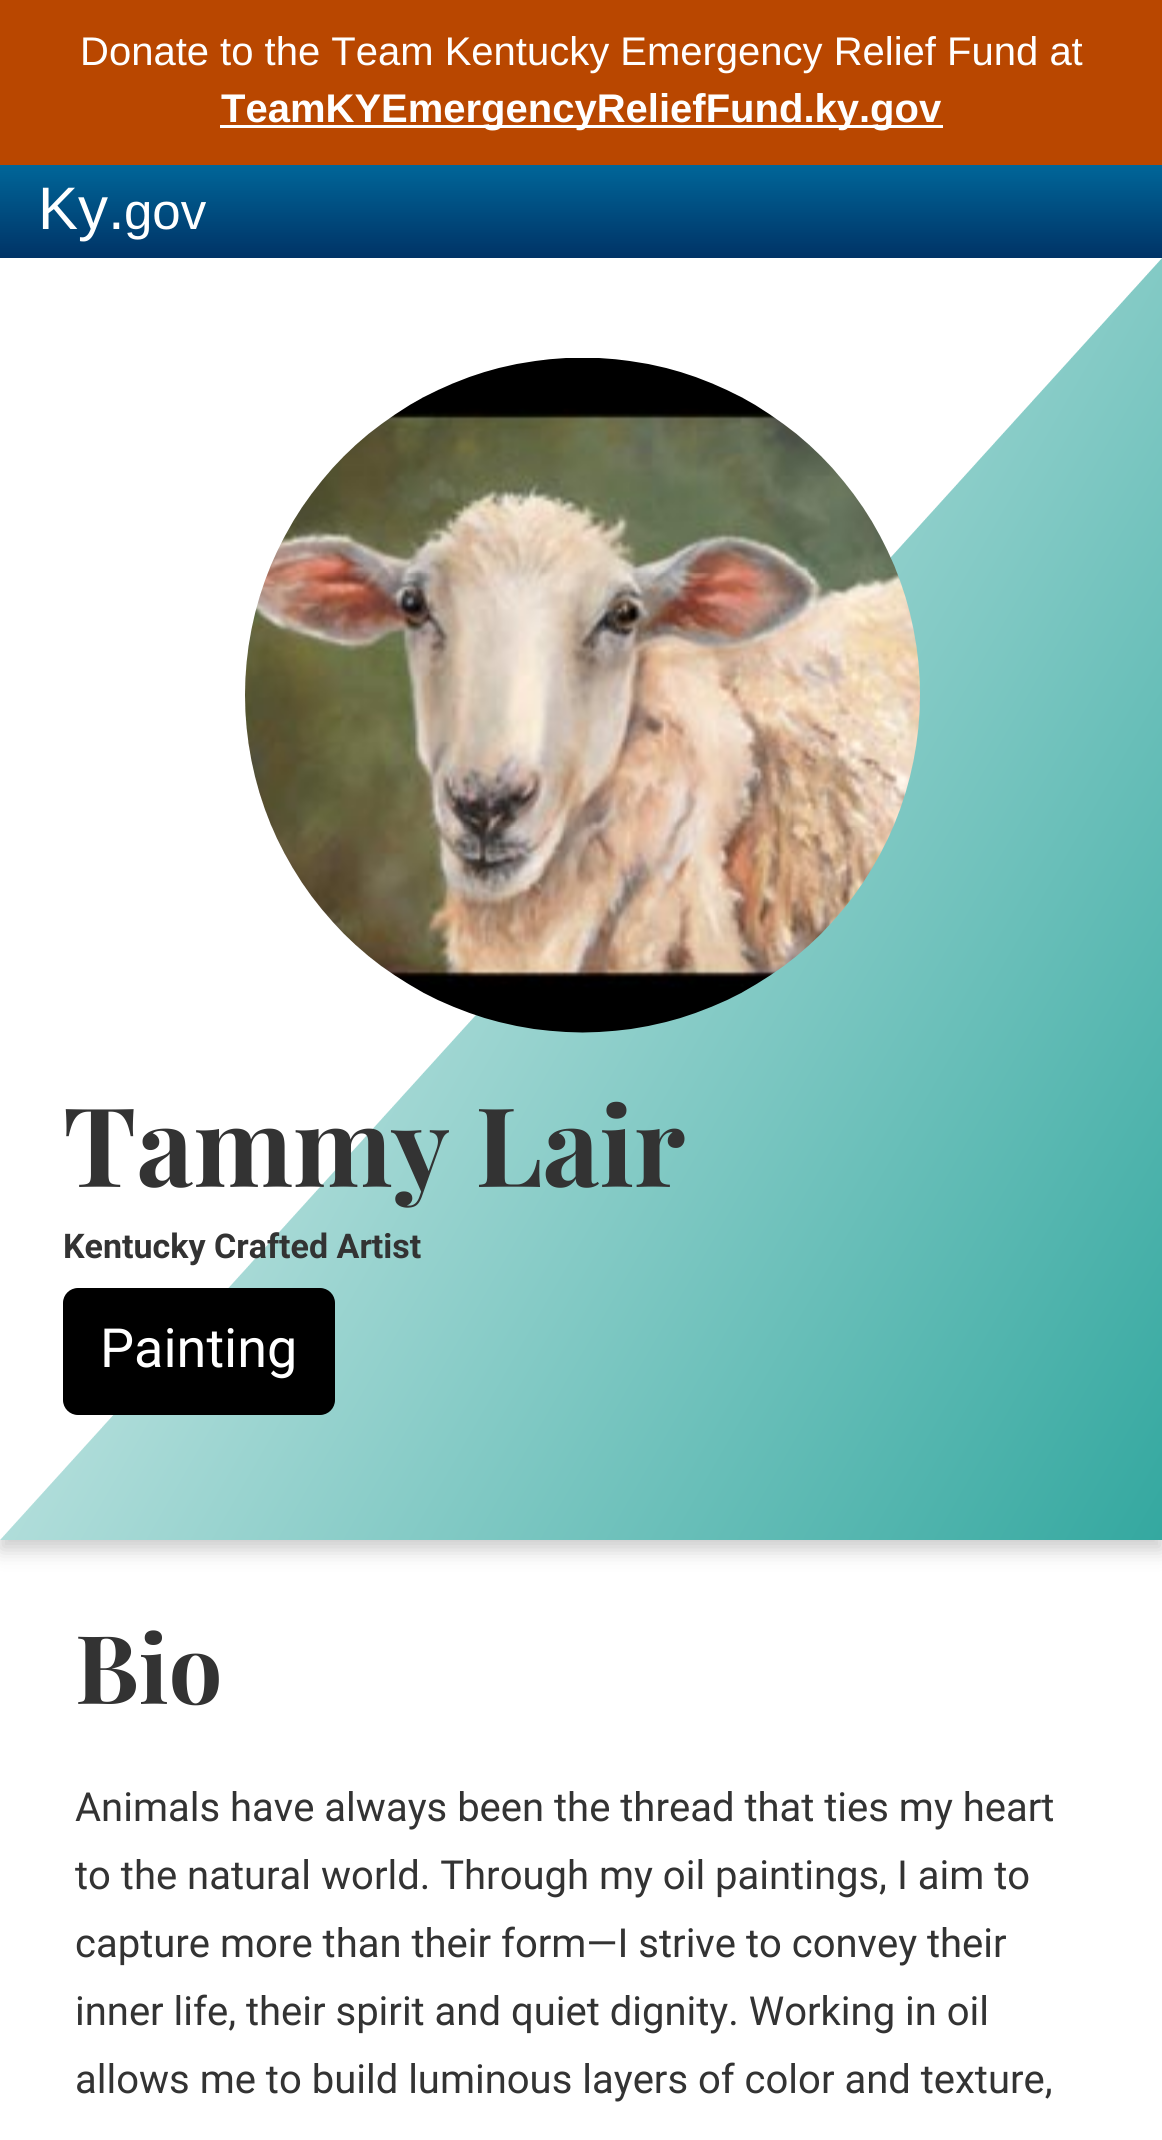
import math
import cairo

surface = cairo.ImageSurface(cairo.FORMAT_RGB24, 1162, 2140)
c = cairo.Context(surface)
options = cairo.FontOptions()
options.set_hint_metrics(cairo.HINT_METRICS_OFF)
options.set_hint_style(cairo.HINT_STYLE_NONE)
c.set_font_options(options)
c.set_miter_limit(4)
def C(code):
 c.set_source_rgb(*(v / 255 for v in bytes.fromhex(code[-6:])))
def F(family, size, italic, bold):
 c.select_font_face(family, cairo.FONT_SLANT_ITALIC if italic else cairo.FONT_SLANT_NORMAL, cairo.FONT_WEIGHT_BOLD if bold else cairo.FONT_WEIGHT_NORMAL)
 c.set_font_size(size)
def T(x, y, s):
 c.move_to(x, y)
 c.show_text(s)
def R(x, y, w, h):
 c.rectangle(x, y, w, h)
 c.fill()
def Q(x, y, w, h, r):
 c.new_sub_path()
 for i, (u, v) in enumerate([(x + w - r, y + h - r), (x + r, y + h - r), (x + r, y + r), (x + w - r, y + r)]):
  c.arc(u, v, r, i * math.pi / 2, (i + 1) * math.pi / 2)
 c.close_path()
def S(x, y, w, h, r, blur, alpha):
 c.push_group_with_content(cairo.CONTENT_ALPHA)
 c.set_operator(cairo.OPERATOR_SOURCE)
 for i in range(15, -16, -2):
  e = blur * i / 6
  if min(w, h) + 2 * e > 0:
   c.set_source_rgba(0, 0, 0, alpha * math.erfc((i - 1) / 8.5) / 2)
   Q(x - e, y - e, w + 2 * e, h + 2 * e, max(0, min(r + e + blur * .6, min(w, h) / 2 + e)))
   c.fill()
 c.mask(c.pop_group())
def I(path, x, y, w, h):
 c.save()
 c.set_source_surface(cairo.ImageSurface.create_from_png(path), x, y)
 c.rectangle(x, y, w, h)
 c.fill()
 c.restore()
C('ffffff')
c.paint()
C('b94700')
R(0,0,1162,165)
F('Liberation Sans',40,0,0)
C('ffffff')
T(80,65,'Donate to the Team Kentucky Emergency Relief Fund at')
R(220,125,723,3)
F('Liberation Sans',40,0,1)
T(221,122,'TeamKYEmergencyReliefFund.ky.gov')
C('000000')
S(0,268,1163,1282,0,10,.2)
gradient = cairo.LinearGradient(581,165,581,258)
gradient.add_color_stop_rgba(0,0,0.4,0.6,1)
gradient.add_color_stop_rgba(1,0,0.2,0.4,1)
c.set_source(gradient)
R(0,165,1162,93)
F('Liberation Sans',60,0,0)
C('ffffff')
T(38,229,'Ky.')
F('Liberation Sans',51,0,0)
T(124,229,'gov')
gradient = cairo.LinearGradient(-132,487,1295,1311)
gradient.add_color_stop_rgba(0,1,1,1,1)
gradient.add_color_stop_rgba(1,0.204,0.659,0.627,1)
c.set_source(gradient)
R(0,258,1162,1282)
I('1.png',0,258,1162,1282)
I('2.png',245,358,675,675)
F('Playfair Display',110,0,1)
C('333333')
T(63,1187,'Tammy Lair')
F('Roboto',34,0,1)
T(63,1258,'Kentucky Crafted Artist')
C('000000')
Q(63,1288,272,127,15)
c.fill()
F('Roboto',54,0,0)
C('ffffff')
T(100,1367,'Painting')
F('Playfair Display',95,0,1)
C('333333')
T(75,1704,'Bio')
F('Roboto',40,0,0)
T(75,1821,'Animals have always been the thread that ties my heart')
T(75,1889,'to the natural world. Through my oil paintings, I aim to')
T(75,1957,'capture more than their form—I strive to convey their')
T(75,2025,'inner life, their spirit and quiet dignity. Working in oil')
T(75,2093,'allows me to build luminous layers of color and texture,')
surface.write_to_png('o.png')
